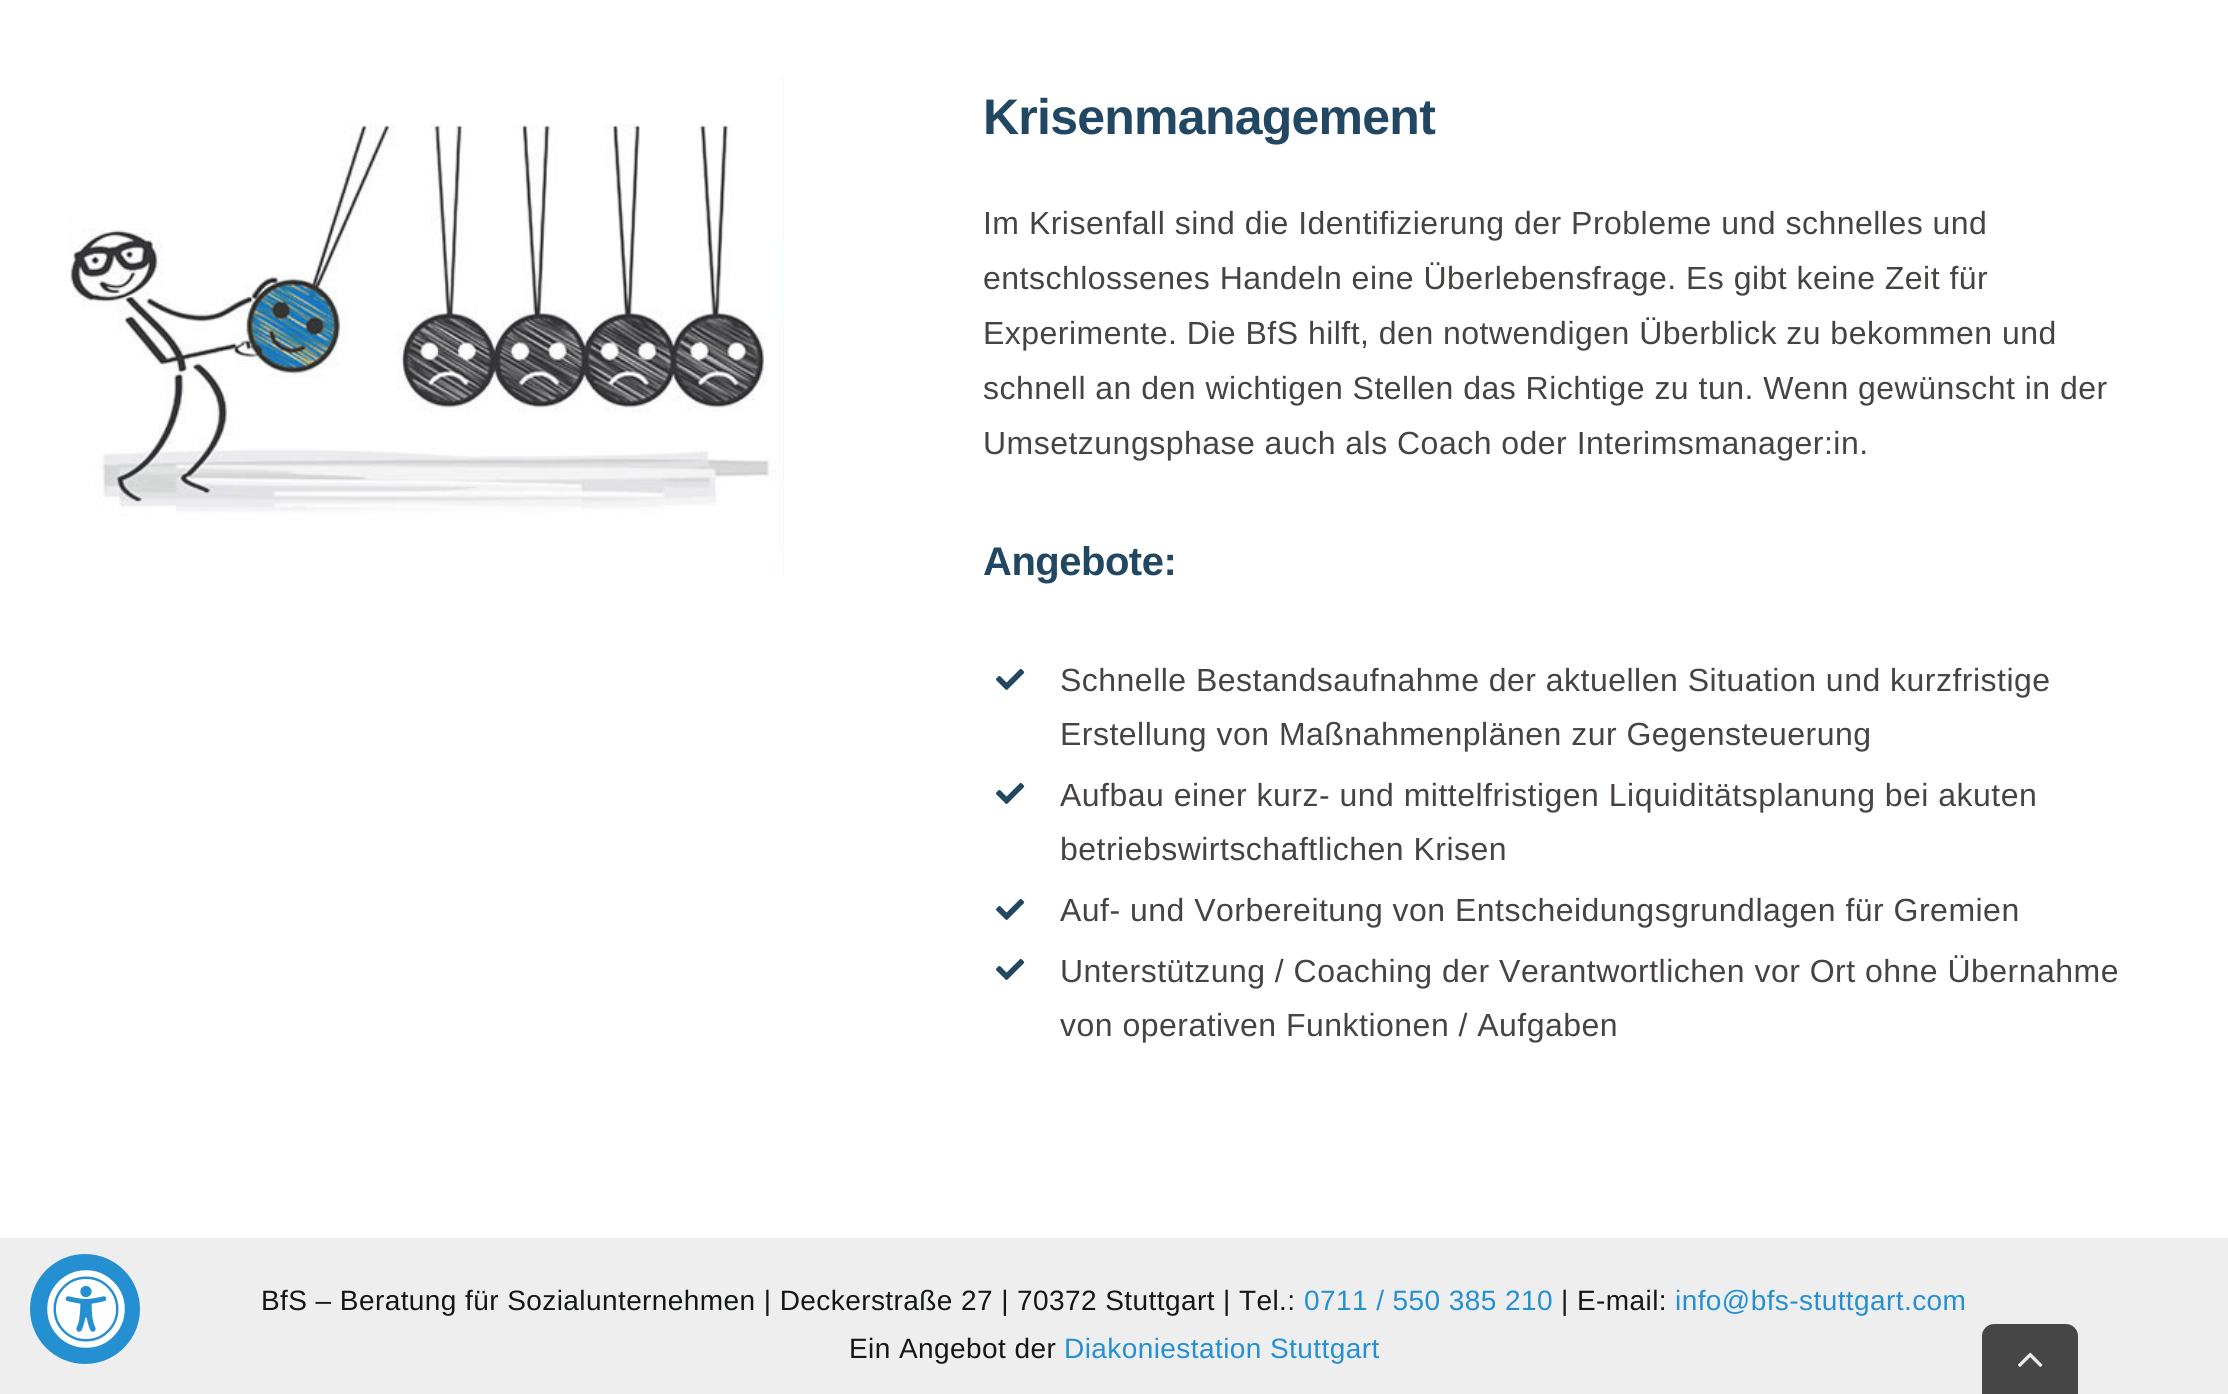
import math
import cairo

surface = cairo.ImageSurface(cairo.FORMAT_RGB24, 2228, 1394)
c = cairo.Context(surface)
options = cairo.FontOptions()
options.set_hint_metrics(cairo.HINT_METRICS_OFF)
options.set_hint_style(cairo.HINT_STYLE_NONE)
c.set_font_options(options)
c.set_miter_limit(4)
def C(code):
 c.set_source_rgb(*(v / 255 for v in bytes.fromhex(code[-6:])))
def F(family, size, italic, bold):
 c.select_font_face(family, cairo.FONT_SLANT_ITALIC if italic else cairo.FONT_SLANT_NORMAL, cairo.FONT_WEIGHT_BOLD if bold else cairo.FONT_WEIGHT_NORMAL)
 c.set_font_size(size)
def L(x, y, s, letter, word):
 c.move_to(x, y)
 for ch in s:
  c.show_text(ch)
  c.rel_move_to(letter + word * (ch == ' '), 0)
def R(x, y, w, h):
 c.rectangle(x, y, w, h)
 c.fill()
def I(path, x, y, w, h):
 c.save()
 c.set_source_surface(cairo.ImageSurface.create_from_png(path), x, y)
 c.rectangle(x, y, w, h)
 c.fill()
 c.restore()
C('ffffff')
c.paint()
C('eeeeee')
R(0,1238,2228,156)
C('2590d1')
c.arc(85,1309,55,0,2 * math.pi)
c.fill()
I('1.png',47,1270,78,78)
I('2.png',66,77,718,499)
F('Liberation Sans',50,0,1)
C('214763')
L(983,134,'Krisenmanagement',-.75,0)
F('Liberation Sans',32,0,0)
C('474343')
L(983,234,'Im Krisenfall sind die Identifizierung der Probleme und schnelles und',.48,0)
L(983,289,'entschlossenes Handeln eine Überlebensfrage. Es gibt keine Zeit für',.48,0)
L(983,344,'Experimente. Die BfS hilft, den notwendigen Überblick zu bekommen und',.48,0)
L(983,399,'schnell an den wichtigen Stellen das Richtige zu tun. Wenn gewünscht in der',.48,0)
L(983,454,'Umsetzungsphase auch als Coach oder Interimsmanager:in.',.48,0)
F('Liberation Sans',40,0,1)
C('214763')
L(983,575,'Angebote:',-.5,0)
I('3.png',996,668,29,22)
F('Liberation Sans',32,0,0)
C('474343')
L(1060,691,'Schnelle Bestandsaufnahme der aktuellen Situation und kurzfristige',.48,0)
L(1060,745,'Erstellung von Maßnahmenplänen zur Gegensteuerung',.48,0)
I('3.png',996,782,29,22)
L(1060,806,'Aufbau einer kurz- und mittelfristigen Liquiditätsplanung bei akuten',.48,0)
L(1060,860,'betriebswirtschaftlichen Krisen',.48,0)
I('3.png',996,898,29,22)
L(1060,921,'Auf- und Vorbereitung von Entscheidungsgrundlagen für Gremien',.48,0)
I('3.png',996,958,29,22)
L(1060,982,'Unterstützung / Coaching der Verantwortlichen vor Ort ohne Übernahme',.48,0)
L(1060,1036,'von operativen Funktionen / Aufgaben',.48,0)
F('Liberation Sans',28,0,0)
C('141617')
L(261,1310,'BfS – Beratung für Sozialunternehmen | Deckerstraße 27 | 70372 Stuttgart | Tel.:',.42,0)
C('2590d1')
L(1304,1310,'0711 / 550 385 210',.42,0)
C('141617')
L(1561,1310,'| E-mail:',.42,0)
C('2590d1')
L(1675,1310,'info@bfs-stuttgart.com',.42,0)
C('141617')
L(849,1358,'Ein Angebot der',.42,0)
C('2590d1')
L(1064,1358,'Diakoniestation Stuttgart',.42,0)
C('464646')
c.new_path()
c.move_to(1994,1324)
c.line_to(2066,1324)
c.curve_to(2072.5,1324,2078,1329.5,2078,1336)
c.line_to(2078,1394)
c.line_to(1982,1394)
c.line_to(1982,1336)
c.curve_to(1982,1329.5,1987.5,1324,1994,1324)
c.close_path()
c.fill()
I('4.png',2018,1352,25,15)
surface.write_to_png('o.png')
